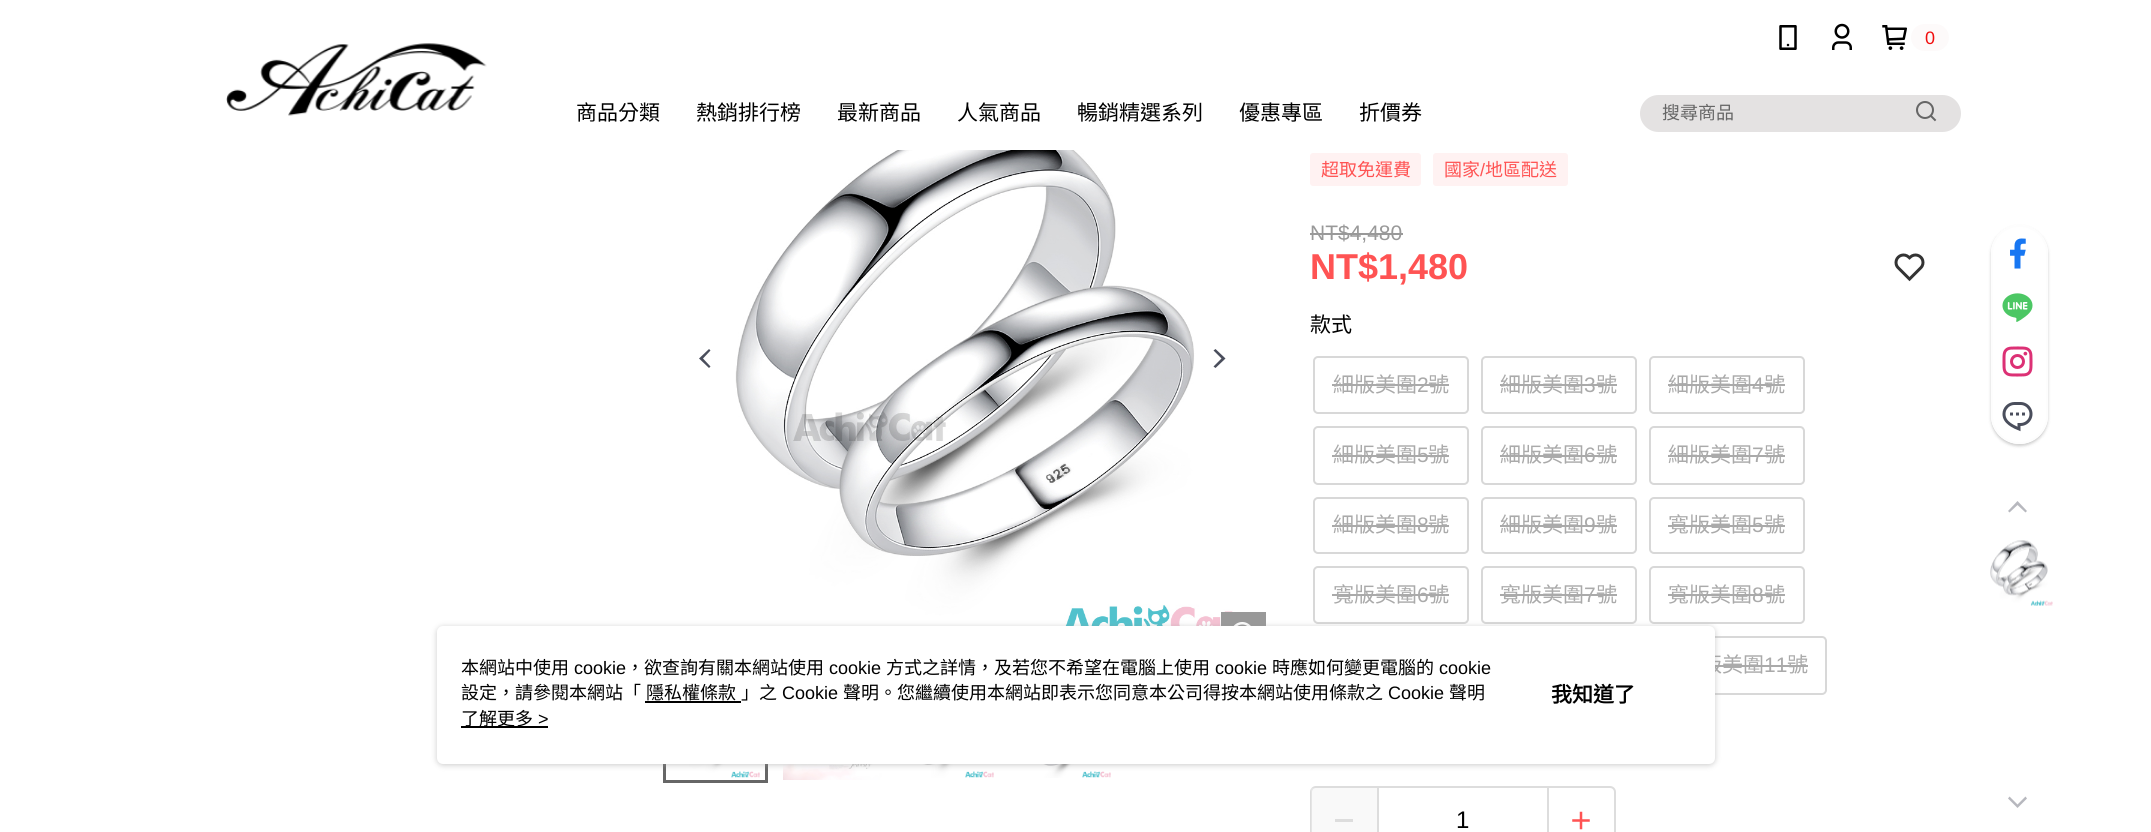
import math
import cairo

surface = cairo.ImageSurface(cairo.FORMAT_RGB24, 2151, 832)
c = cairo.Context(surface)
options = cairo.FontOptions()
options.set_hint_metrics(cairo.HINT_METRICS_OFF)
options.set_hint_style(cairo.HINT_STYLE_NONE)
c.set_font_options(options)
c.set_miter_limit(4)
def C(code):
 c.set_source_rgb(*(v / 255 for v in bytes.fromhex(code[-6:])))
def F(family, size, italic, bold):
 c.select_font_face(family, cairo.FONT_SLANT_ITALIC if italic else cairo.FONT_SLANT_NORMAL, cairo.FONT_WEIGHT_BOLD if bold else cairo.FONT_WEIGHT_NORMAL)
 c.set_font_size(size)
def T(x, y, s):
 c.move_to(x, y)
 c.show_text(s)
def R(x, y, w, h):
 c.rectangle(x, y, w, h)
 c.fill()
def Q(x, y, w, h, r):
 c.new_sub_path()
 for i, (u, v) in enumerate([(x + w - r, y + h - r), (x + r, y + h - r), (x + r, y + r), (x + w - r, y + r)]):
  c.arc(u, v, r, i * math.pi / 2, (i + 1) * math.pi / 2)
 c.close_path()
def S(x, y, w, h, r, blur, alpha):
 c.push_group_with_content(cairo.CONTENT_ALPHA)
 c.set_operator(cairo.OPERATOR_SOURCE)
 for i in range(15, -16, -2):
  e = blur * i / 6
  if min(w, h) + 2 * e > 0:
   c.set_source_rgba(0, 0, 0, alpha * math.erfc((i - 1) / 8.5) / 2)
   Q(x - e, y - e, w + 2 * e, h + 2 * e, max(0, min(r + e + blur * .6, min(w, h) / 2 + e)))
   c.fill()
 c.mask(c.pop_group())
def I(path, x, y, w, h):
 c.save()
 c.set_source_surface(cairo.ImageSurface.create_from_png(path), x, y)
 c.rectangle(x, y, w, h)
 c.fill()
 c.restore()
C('ffffff')
c.paint()
I('1.png',226,43,261,73)
I('2.png',1779,25,18,25)
I('3.png',1832,23,20,27)
I('4.png',1882,25,25,25)
C('fdfafa')
Q(1911,24,38,27,13.5)
c.fill()
F('Liberation Sans',18,0,0)
C('f10e0e')
T(1925,44,'0')
F('Noto Sans CJK TC',21,0,0)
C('000000')
T(576,120,'商品分類')
T(696,120,'熱銷排行榜')
T(837,120,'最新商品')
T(957,120,'人氣商品')
T(1077,120,'暢銷精選系列')
T(1239,120,'優惠專區')
T(1359,120,'折價券')
C('e4e2e2')
Q(1640,95,321,37,18.5)
c.fill()
F('Noto Sans CJK TC',18,0,0)
C('666666')
T(1662,119,'搜尋商品')
I('5.png',1916,101,21,21)
C('4a4e5c')
c.new_path()
c.move_to(710.5,350.5)
c.line_to(709,349)
c.line_to(699,358.5)
c.line_to(709,368)
c.line_to(710.5,366.5)
c.line_to(703,358.5)
c.close_path()
c.fill()
I('6.png',735,150,501,476)
C('999999')
R(1221,612,45,14)
I('7.png',1233,622,18,4)
C('4a4e5c')
c.new_path()
c.move_to(1213.5,366.5)
c.line_to(1215.5,368)
c.line_to(1225.5,358.5)
c.line_to(1215.5,349)
c.line_to(1213.5,350.5)
c.line_to(1221.5,358.5)
c.close_path()
c.fill()
I('8.png',677,764,83,14)
c.rectangle(664.5,679.5,102,102)
C('666666')
c.set_line_width(3)
c.stroke()
I('9.png',783,764,99,16)
I('10.png',908,764,86,14)
I('11.png',1025,764,86,14)
C('fff2f2')
Q(1311,154,109,31,2)
c.fill_preserve()
c.set_line_width(2)
c.stroke()
C('ff5353')
T(1321,176,'超取免運費')
C('fff2f2')
Q(1434,154,133,31,2)
c.fill_preserve()
c.stroke()
C('ff5353')
T(1444,176,'國家')
F('Liberation Sans',18,0,0)
T(1480,176,'/')
F('Noto Sans CJK TC',18,0,0)
T(1485,176,'地區配送')
F('Liberation Sans',21,0,0)
C('999999')
T(1310,240,'NT$4,480')
R(1310,233,93,2)
F('Liberation Sans',36,0,1)
C('ff5353')
T(1310,279,'NT$1,480')
I('12.png',1894,253,31,29)
F('Noto Sans CJK TC',21,0,0)
C('000000')
T(1310,332,'款式')
Q(1314,357,154,56,4)
C('d8d8d8')
c.stroke()
C('aaaaaa')
T(1333,392,'細版美圍')
F('Liberation Sans',21,0,0)
T(1417,392,'2')
R(1332,384,117,2)
F('Noto Sans CJK TC',21,0,0)
T(1428,392,'號')
Q(1482,357,154,56,4)
C('d8d8d8')
c.stroke()
C('aaaaaa')
T(1500,392,'細版美圍')
F('Liberation Sans',21,0,0)
T(1584,392,'3')
R(1500,384,117,2)
F('Noto Sans CJK TC',21,0,0)
T(1596,392,'號')
Q(1650,357,154,56,4)
C('d8d8d8')
c.stroke()
C('aaaaaa')
T(1668,392,'細版美圍')
F('Liberation Sans',21,0,0)
T(1752,392,'4')
R(1668,384,117,2)
F('Noto Sans CJK TC',21,0,0)
T(1764,392,'號')
Q(1314,427,154,57,4)
C('d8d8d8')
c.stroke()
C('aaaaaa')
T(1333,462,'細版美圍')
F('Liberation Sans',21,0,0)
T(1417,462,'5')
R(1332,455,117,2)
F('Noto Sans CJK TC',21,0,0)
T(1428,462,'號')
Q(1482,427,154,57,4)
C('d8d8d8')
c.stroke()
C('aaaaaa')
T(1500,462,'細版美圍')
F('Liberation Sans',21,0,0)
T(1584,462,'6')
R(1500,455,117,2)
F('Noto Sans CJK TC',21,0,0)
T(1596,462,'號')
Q(1650,427,154,57,4)
C('d8d8d8')
c.stroke()
C('aaaaaa')
T(1668,462,'細版美圍')
F('Liberation Sans',21,0,0)
T(1752,462,'7')
R(1668,455,117,2)
F('Noto Sans CJK TC',21,0,0)
T(1764,462,'號')
Q(1314,498,154,55,4)
C('d8d8d8')
c.stroke()
C('aaaaaa')
T(1333,532,'細版美圍')
F('Liberation Sans',21,0,0)
T(1417,532,'8')
R(1332,525,117,2)
F('Noto Sans CJK TC',21,0,0)
T(1428,532,'號')
Q(1482,498,154,55,4)
C('d8d8d8')
c.stroke()
C('aaaaaa')
T(1500,532,'細版美圍')
F('Liberation Sans',21,0,0)
T(1584,532,'9')
R(1500,525,117,2)
F('Noto Sans CJK TC',21,0,0)
T(1596,532,'號')
Q(1650,498,154,55,4)
C('d8d8d8')
c.stroke()
C('aaaaaa')
T(1668,532,'寬版美圍')
F('Liberation Sans',21,0,0)
T(1752,532,'5')
R(1668,525,117,2)
F('Noto Sans CJK TC',21,0,0)
T(1764,532,'號')
Q(1314,567,154,56,4)
C('d8d8d8')
c.stroke()
C('aaaaaa')
T(1333,602,'寬版美圍')
F('Liberation Sans',21,0,0)
T(1417,602,'6')
R(1332,594,117,2)
F('Noto Sans CJK TC',21,0,0)
T(1428,602,'號')
Q(1482,567,154,56,4)
C('d8d8d8')
c.stroke()
C('aaaaaa')
T(1500,602,'寬版美圍')
F('Liberation Sans',21,0,0)
T(1584,602,'7')
R(1500,594,117,2)
F('Noto Sans CJK TC',21,0,0)
T(1596,602,'號')
Q(1650,567,154,56,4)
C('d8d8d8')
c.stroke()
C('aaaaaa')
T(1668,602,'寬版美圍')
F('Liberation Sans',21,0,0)
T(1752,602,'8')
R(1668,594,117,2)
F('Noto Sans CJK TC',21,0,0)
T(1764,602,'號')
Q(1662,637,164,57,4)
C('d8d8d8')
c.stroke()
C('aaaaaa')
T(1701,672,'版美圍')
F('Liberation Sans',21,0,0)
T(1764,672,'11')
R(1715,665,93,2)
F('Noto Sans CJK TC',21,0,0)
T(1787,672,'號')
Q(1311,787,304,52,5)
C('dddddd')
c.stroke()
c.set_source_rgba(0.945,0.945,0.945,0.4)
R(1311,788,66,44)
C('dddddd')
R(1335,819,18,3)
R(1547,788,2,44)
R(1377,788,2,44)
F('Liberation Sans',24,0,0)
C('000000')
T(1456,828,'1')
I('13.png',1572,811,18,19)
c.save()
c.set_fill_rule(cairo.FILL_RULE_EVEN_ODD)
c.new_path()
c.move_to(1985,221)
c.line_to(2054,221)
c.line_to(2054,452)
c.line_to(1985,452)
c.close_path()
c.move_to(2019.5,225)
c.curve_to(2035,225,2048,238,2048,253.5)
c.line_to(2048,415.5)
c.curve_to(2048,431,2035,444,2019.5,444)
c.curve_to(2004,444,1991,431,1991,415.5)
c.line_to(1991,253.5)
c.curve_to(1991,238,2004,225,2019.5,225)
c.close_path()
c.clip()
C('000000')
S(1991,227,57,219,28.5,1.5,.2)
c.restore()
c.set_source_rgba(1,1,1,0.9)
Q(1992,226,55,217,27.5)
c.fill_preserve()
C('fdfdfd')
c.stroke()
I('14.png',2010,238,16,31)
I('15.png',2002,293,31,29)
I('16.png',2002,346,31,31)
I('17.png',2002,402,31,30)
C('b7b8be')
c.new_path()
c.move_to(2025.5,512.5)
c.line_to(2027,511)
c.line_to(2017.5,501)
c.line_to(2008,511)
c.line_to(2009.5,512.5)
c.line_to(2017.5,505)
c.close_path()
c.fill()
I('18.png',1990,540,63,66)
c.new_path()
c.move_to(2009.5,796.5)
c.line_to(2008,798.5)
c.line_to(2017.5,808)
c.line_to(2027,798.5)
c.line_to(2025.5,796.5)
c.line_to(2017.5,804.5)
c.close_path()
c.fill()
C('979797')
S(437,627,1278,138,6,3,.5)
C('ffffff')
Q(437,626,1278,138,6)
c.fill()
F('Noto Sans CJK TC',18,0,0)
C('000000')
T(461,674,'本網站中使用')
F('Liberation Sans',18,0,0)
T(574,674,'cookie')
F('Noto Sans CJK TC',18,0,0)
T(626,674,'，欲查詢有關本網站使用')
F('Liberation Sans',18,0,0)
T(829,674,'cookie')
F('Noto Sans CJK TC',18,0,0)
T(886,674,'方式之詳情，及若您不希望在電腦上使用')
F('Liberation Sans',18,0,0)
T(1215,674,'cookie')
F('Noto Sans CJK TC',18,0,0)
T(1272,674,'時應如何變更電腦的')
F('Liberation Sans',18,0,0)
T(1439,674,'cookie')
F('Noto Sans CJK TC',18,0,0)
T(461,699,'設定，請參閱本網站「')
T(646,699,'隱私權條款')
R(645,701,96,2)
T(741,699,'」之')
F('Liberation Sans',18,0,0)
T(782,699,'Cookie')
F('Noto Sans CJK TC',18,0,0)
T(843,699,'聲明。您繼續使用本網站即表示您同意本公司得按本網站使用條款之')
F('Liberation Sans',18,0,0)
T(1388,699,'Cookie')
F('Noto Sans CJK TC',18,0,0)
T(1449,699,'聲明')
R(461,726,87,2)
T(461,725,'了解更多')
F('Liberation Sans',18,0,0)
T(538,725,'>')
F('Noto Sans CJK TC',21,0,1)
T(1551,702,'我知道了')
surface.write_to_png('o.png')
